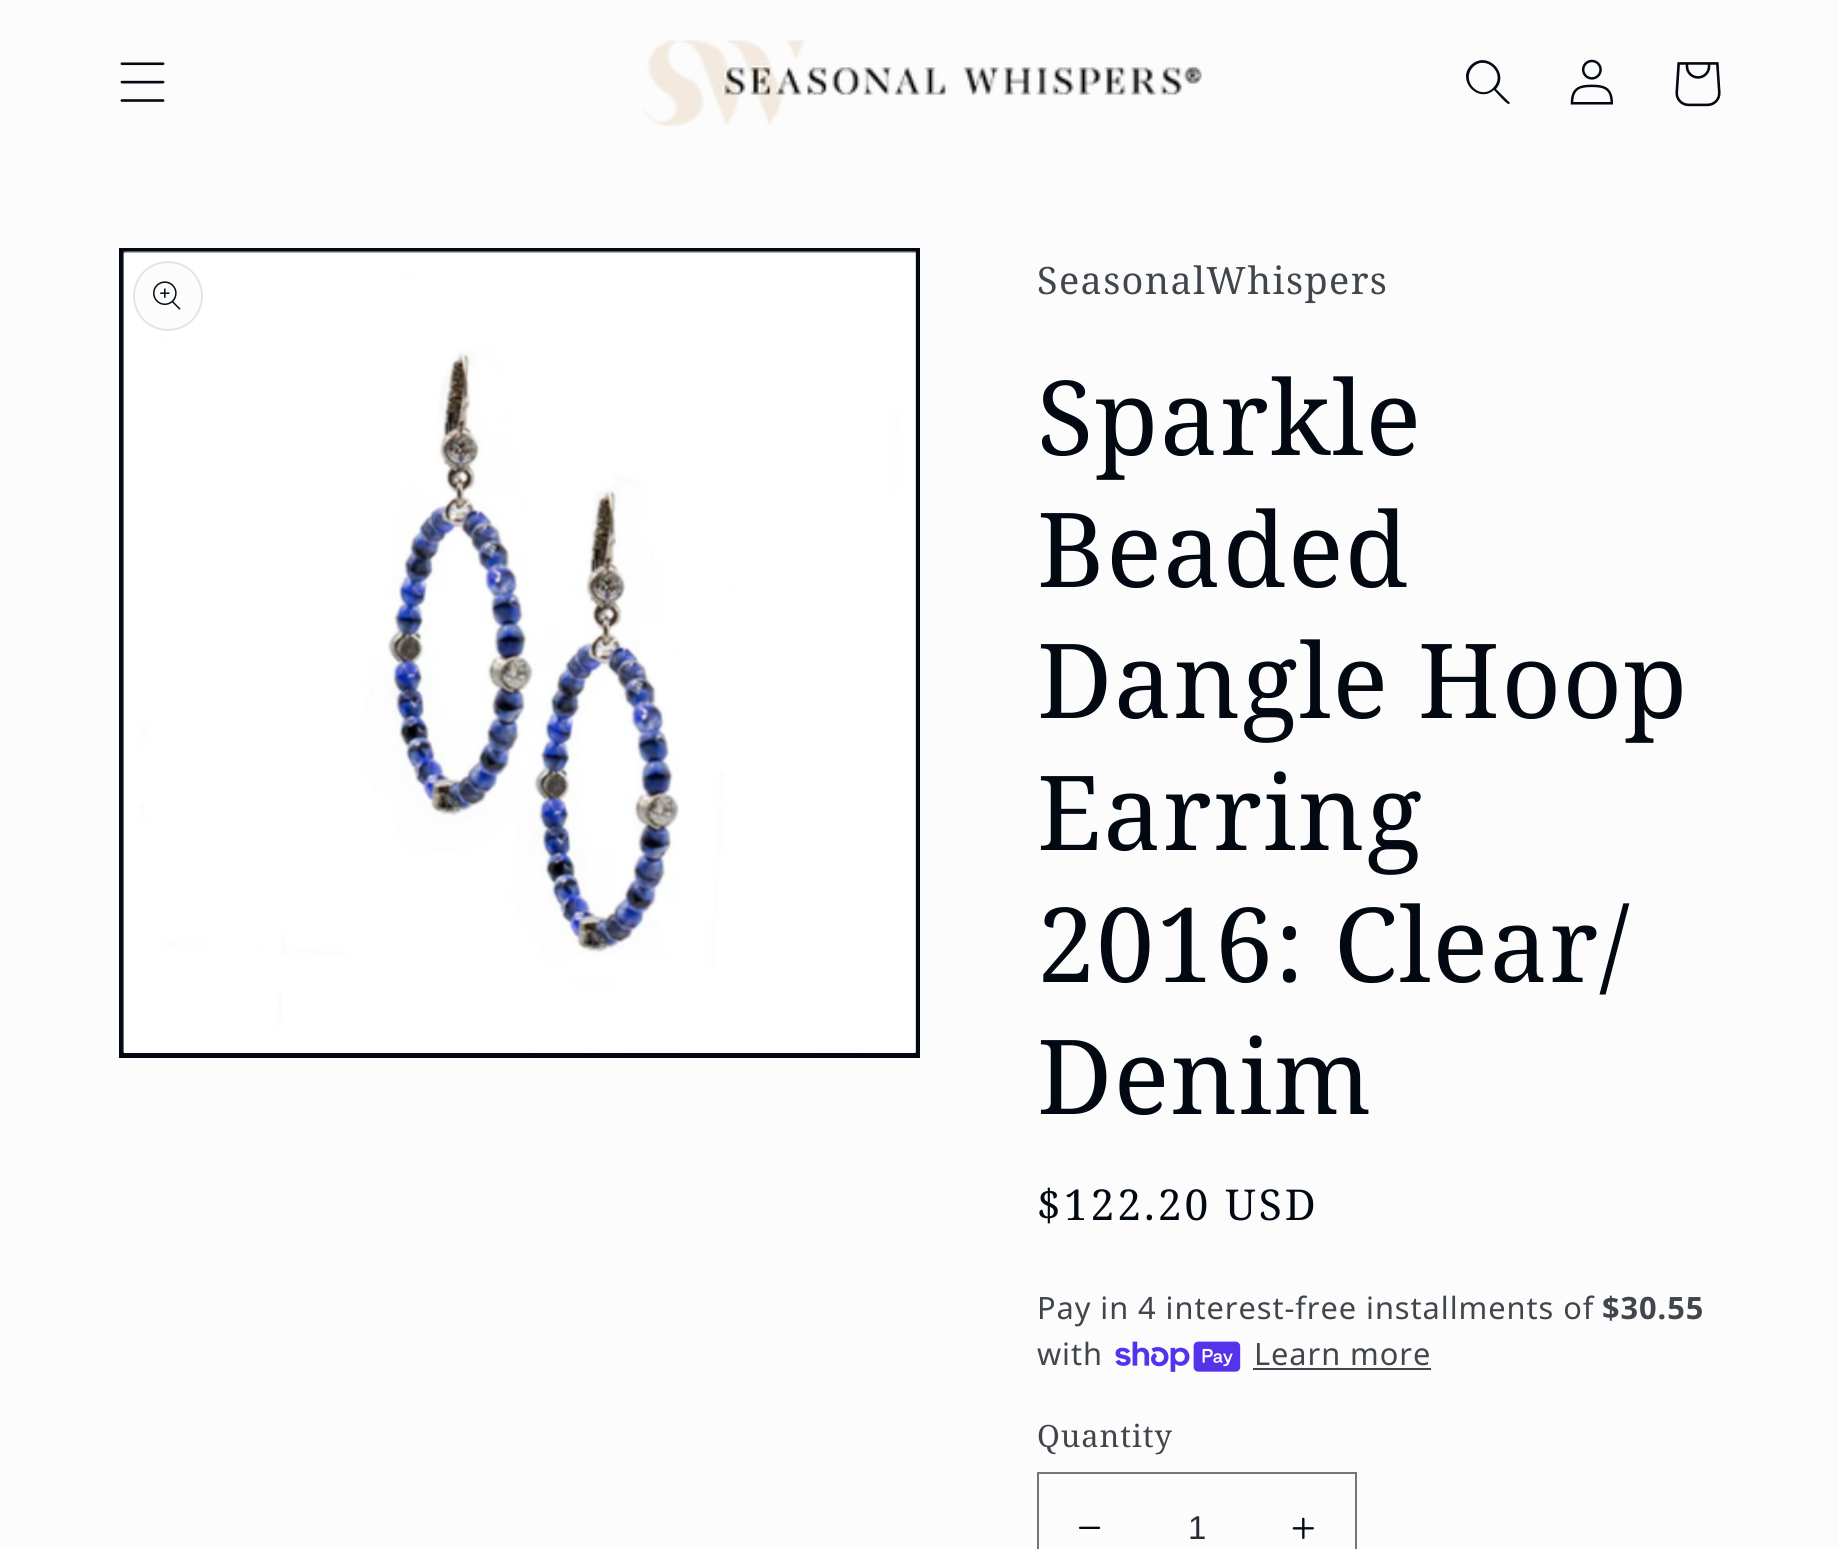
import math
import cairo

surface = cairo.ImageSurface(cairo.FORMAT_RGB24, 1838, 1549)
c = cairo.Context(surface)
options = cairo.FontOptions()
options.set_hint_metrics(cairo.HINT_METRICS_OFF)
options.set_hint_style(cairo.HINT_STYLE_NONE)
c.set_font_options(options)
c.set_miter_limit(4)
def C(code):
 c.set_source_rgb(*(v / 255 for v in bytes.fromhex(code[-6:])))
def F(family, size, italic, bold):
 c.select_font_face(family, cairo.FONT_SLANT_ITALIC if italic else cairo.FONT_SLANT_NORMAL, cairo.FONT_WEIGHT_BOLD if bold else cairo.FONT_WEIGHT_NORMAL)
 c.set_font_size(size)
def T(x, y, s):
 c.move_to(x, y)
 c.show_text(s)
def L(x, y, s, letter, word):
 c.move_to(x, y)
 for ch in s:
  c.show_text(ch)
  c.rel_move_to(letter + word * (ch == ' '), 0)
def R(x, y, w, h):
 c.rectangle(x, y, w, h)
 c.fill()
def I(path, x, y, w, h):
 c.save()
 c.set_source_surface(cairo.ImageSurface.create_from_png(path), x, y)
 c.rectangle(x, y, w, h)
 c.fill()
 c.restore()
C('fcfcfc')
c.paint()
I('1.png',120,62,45,40)
I('2.png',643,40,559,86)
C('020912')
c.set_fill_rule(cairo.FILL_RULE_EVEN_ODD)
c.new_path()
c.move_to(1493,88)
c.curve_to(1480,101,1460,81,1473,67)
c.curve_to(1486,54,1507,74,1493,88)
c.close_path()
c.move_to(1494,90)
c.curve_to(1478,104,1456,80,1471,65)
c.curve_to(1487,50,1510,73,1496,89)
c.line_to(1510,103)
c.line_to(1509,104)
c.curve_to(1507,105,1496,92,1494,90)
c.close_path()
c.fill()
I('3.png',1570,59,43,46)
I('4.png',1675,62,46,45)
c.rectangle(121.5,250.5,796,805)
c.set_line_width(5)
c.stroke()
I('5.png',122,251,794,802)
C('fcfcfc')
c.arc(168,296,34,0,2 * math.pi)
c.fill_preserve()
C('e3e4e5')
c.set_line_width(2)
c.stroke()
I('6.png',153,281,28,29)
F('Noto Serif',37.75,0,0)
C('41464d')
L(1037,294,'SeasonalWhispers',1.4,0)
F('Noto Serif',103.5,0,0)
C('020912')
L(1037,455,'Sparkle',1.5,0)
L(1037,587,'Beaded',1.5,0)
L(1037,718,'Dangle Hoop',1.5,0)
L(1037,850,'Earring',1.5,0)
L(1037,982,'2016: Clear/',1.5,0)
L(1037,1114,'Denim',1.5,0)
F('Noto Serif',42.5,0,0)
L(1037,1220,'$122.20 USD',3,0)
F('Noto Sans',30.75,0,0)
C('41464d')
L(1037,1319,'Pay in 4 interest-free installments of',.95,0)
F('Noto Sans',30.75,0,1)
L(1602,1319,'$30.55',.95,0)
F('Noto Sans',30.75,0,0)
L(1037,1365,'with',.95,0)
I('7.png',1115,1341,126,31)
L(1254,1365,'Learn more',.95,0)
R(1253,1368,178,2)
F('Noto Serif',30.75,0,0)
L(1037,1447,'Quantity',.95,0)
I('8.png',1079,1526,22,3)
I('9.png',1292,1517,22,22)
c.rectangle(1038,1473,318,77)
C('72767b')
c.stroke()
F('Liberation Sans',33,0,0)
C('282d35')
T(1188,1539,'1')
surface.write_to_png('o.png')
